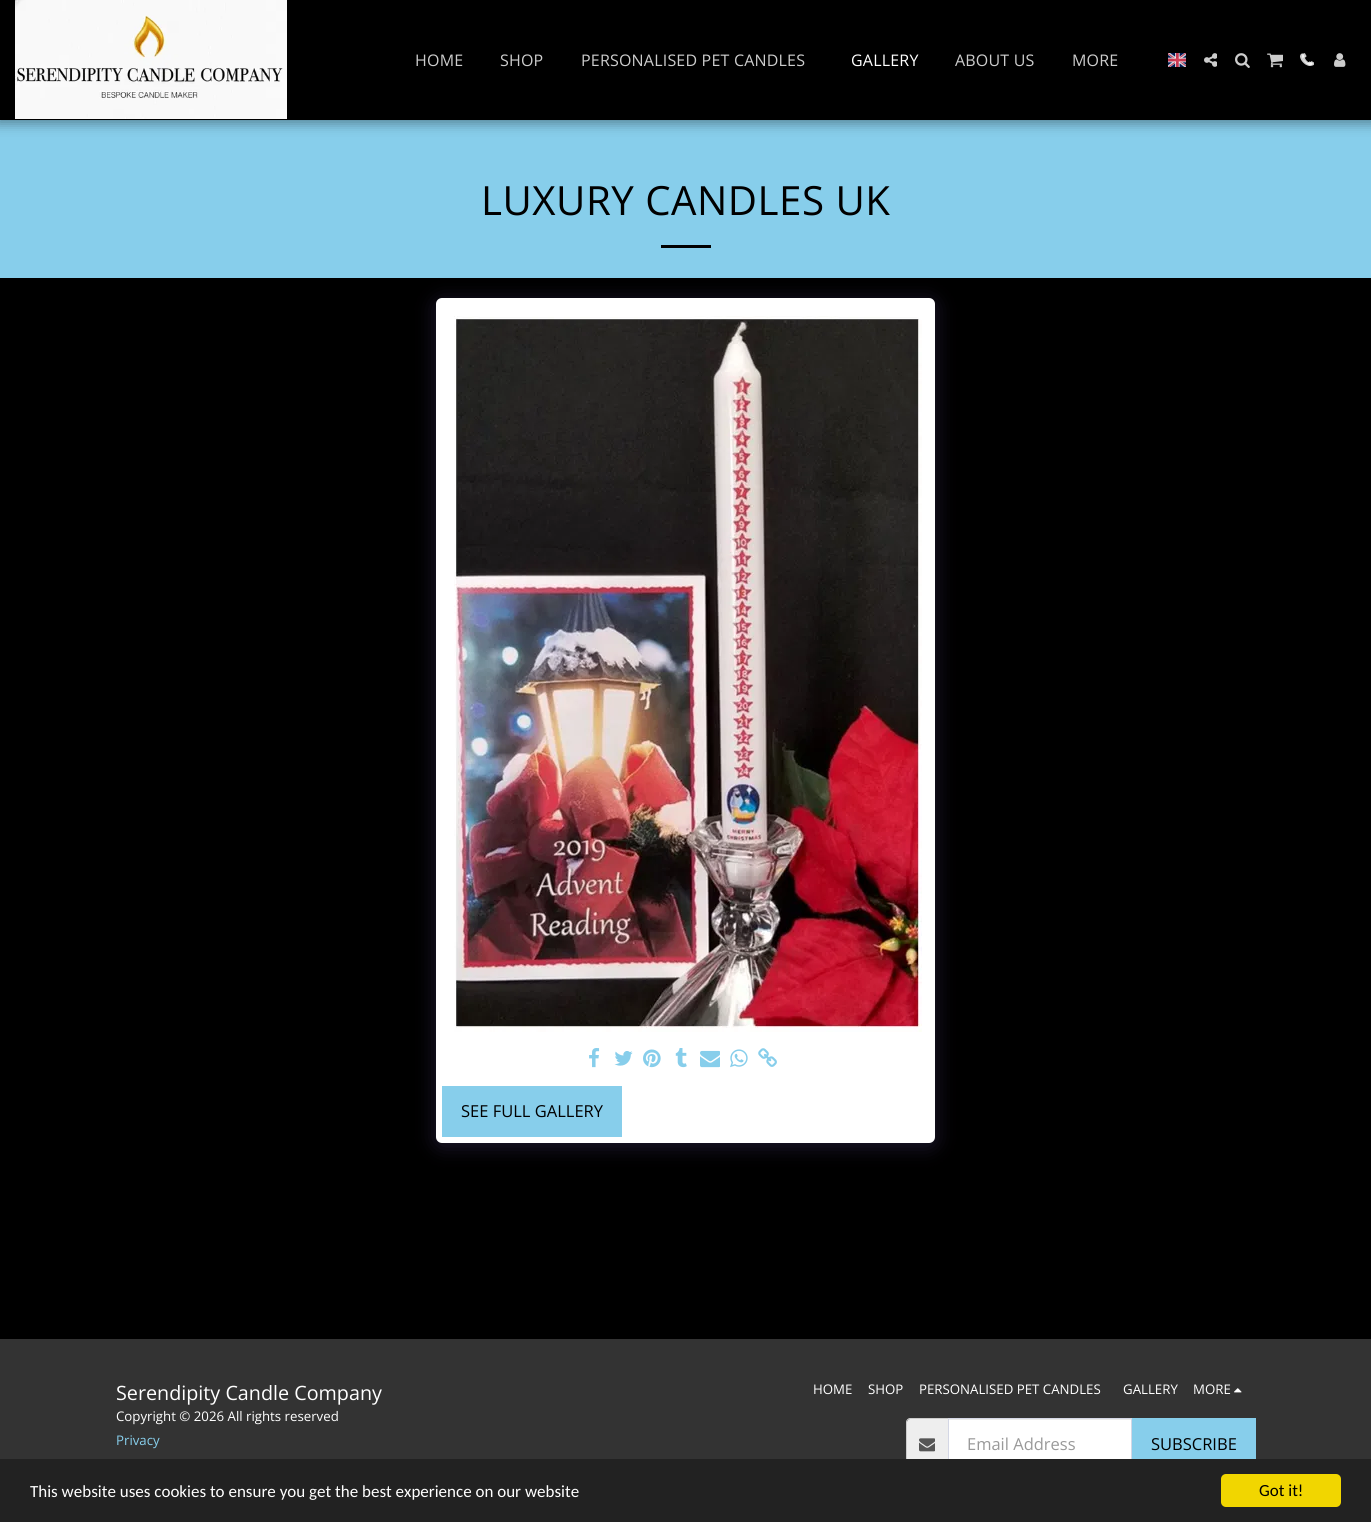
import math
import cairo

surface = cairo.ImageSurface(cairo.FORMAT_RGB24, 1371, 1522)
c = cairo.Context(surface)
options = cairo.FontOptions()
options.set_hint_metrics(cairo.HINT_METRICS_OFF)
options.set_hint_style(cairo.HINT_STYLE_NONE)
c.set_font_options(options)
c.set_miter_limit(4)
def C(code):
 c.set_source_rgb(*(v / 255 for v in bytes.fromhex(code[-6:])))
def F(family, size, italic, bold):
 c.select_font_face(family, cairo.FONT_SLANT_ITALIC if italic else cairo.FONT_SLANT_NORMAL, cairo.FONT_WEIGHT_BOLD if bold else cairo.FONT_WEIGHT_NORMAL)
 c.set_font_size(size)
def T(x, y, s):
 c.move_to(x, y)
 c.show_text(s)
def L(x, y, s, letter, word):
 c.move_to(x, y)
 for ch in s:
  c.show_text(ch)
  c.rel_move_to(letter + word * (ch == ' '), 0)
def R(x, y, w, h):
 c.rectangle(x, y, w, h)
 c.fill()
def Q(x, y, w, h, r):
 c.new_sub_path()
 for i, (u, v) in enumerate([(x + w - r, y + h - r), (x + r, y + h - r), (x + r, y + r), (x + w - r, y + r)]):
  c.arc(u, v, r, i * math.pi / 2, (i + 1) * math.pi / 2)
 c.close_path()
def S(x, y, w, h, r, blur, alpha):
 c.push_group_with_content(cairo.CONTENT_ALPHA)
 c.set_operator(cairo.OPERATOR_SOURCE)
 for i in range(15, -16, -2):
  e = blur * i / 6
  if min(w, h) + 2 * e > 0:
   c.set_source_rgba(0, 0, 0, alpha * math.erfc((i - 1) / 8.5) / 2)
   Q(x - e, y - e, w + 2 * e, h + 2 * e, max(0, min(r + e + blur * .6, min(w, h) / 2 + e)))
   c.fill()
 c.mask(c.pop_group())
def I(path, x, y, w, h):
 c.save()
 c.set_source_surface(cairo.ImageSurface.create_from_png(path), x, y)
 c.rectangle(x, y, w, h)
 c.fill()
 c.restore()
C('333333')
c.paint()
C('87ceeb')
R(0,120,1371,158)
C('000000')
S(-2,0,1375,124,0,6,.35)
C('000000')
R(0,0,1371,120)
I('1.png',15,0,272,119)
F('Open Sans',16,0,0)
C('cccccc')
L(415,66,'HOME',.2,0)
L(500,66,'SHOP',.2,0)
L(581,66,'PERSONALISED PET CANDLES',.2,0)
C('ffffff')
L(851,66,'GALLERY',.2,0)
C('cccccc')
L(955,66,'ABOUT US',.2,0)
L(1072,66,'MORE',.2,0)
I('2.png',1168,53,18,14)
I('3.png',1204,53,13,14)
I('4.png',1235,53,15,15)
I('5.png',1267,53,16,15)
I('6.png',1302,53,12,13)
I('7.png',1300,53,13,13)
I('8.png',1334,53,12,14)
F('Open Sans',40.25,0,0)
C('000000')
L(481,215,'LUXURY CANDLES UK',.5,0)
R(661,245,50,3)
R(0,278,1371,1061)
C('4d3f7a')
S(436,301,499,845,6,10,.4)
C('ffffff')
Q(436,298,499,845,6)
c.fill()
I('9.png',454,316,468,716)
I('10.png',589,1048,11,20)
I('11.png',614,1051,19,15)
I('12.png',643,1049,18,19)
I('13.png',675,1048,12,20)
I('14.png',700,1050,20,18)
I('15.png',730,1049,18,19)
I('16.png',758,1048,19,19)
C('87ceeb')
R(442,1086,180,51)
F('Open Sans',16.5,0,0)
C('000000')
T(461,1117,'SEE FULL GALLERY')
F('Open Sans',19.75,0,0)
C('ffffff')
T(116,1400,'Serendipity Candle Company')
F('Open Sans',13.25,0,0)
T(116,1421,'Copyright © 2026 All rights reserved')
C('87ceeb')
T(116,1445,'Privacy')
C('ffffff')
T(813,1394,'HOME')
T(868,1394,'SHOP')
T(919,1394,'PERSONALISED PET CANDLES')
T(1123,1394,'GALLERY')
T(1193,1394,'MORE')
I('17.png',1234,1388,8,5)
C('eeeeee')
c.new_path()
c.move_to(910,1419)
c.line_to(948,1419)
c.line_to(948,1469)
c.line_to(910,1469)
c.curve_to(908.5,1469,907,1467.5,907,1466)
c.line_to(907,1422)
c.curve_to(907,1420.5,908.5,1419,910,1419)
c.close_path()
c.fill()
C('cccccc')
c.set_fill_rule(cairo.FILL_RULE_EVEN_ODD)
c.new_path()
c.move_to(910,1418)
c.line_to(948,1418)
c.line_to(948,1470)
c.line_to(910,1470)
c.curve_to(908,1470,906,1468,906,1466)
c.line_to(906,1422)
c.curve_to(906,1420,908,1418,910,1418)
c.close_path()
c.move_to(910,1419)
c.line_to(948,1419)
c.line_to(948,1469)
c.curve_to(943,1469,910,1470,908,1468)
c.line_to(907,1467)
c.line_to(907,1421)
c.line_to(908,1420)
c.close_path()
c.fill()
I('18.png',919,1438,16,14)
C('ffffff')
R(949,1420,182,39)
C('ececec')
R(949,1419,182,1)
c.rectangle(948.5,1418.5,183,51)
C('d4d7e5')
c.set_line_width(1)
c.stroke()
F('Open Sans',16.5,0,0)
C('999999')
T(967,1450,'Email Address')
C('87ceeb')
R(1132,1418,124,41)
C('000000')
T(1151,1450,'SUBSCRIBE')
C('222222')
R(0,1459,1371,63)
F('Carlito',17,0,0)
C('ffffff')
T(30,1497,'This website uses cookies to ensure you get the best experience on our website')
C('f1d600')
Q(1221,1474,120,33,5)
c.fill()
C('000000')
T(1259,1496,'Got it!')
surface.write_to_png('o.png')
